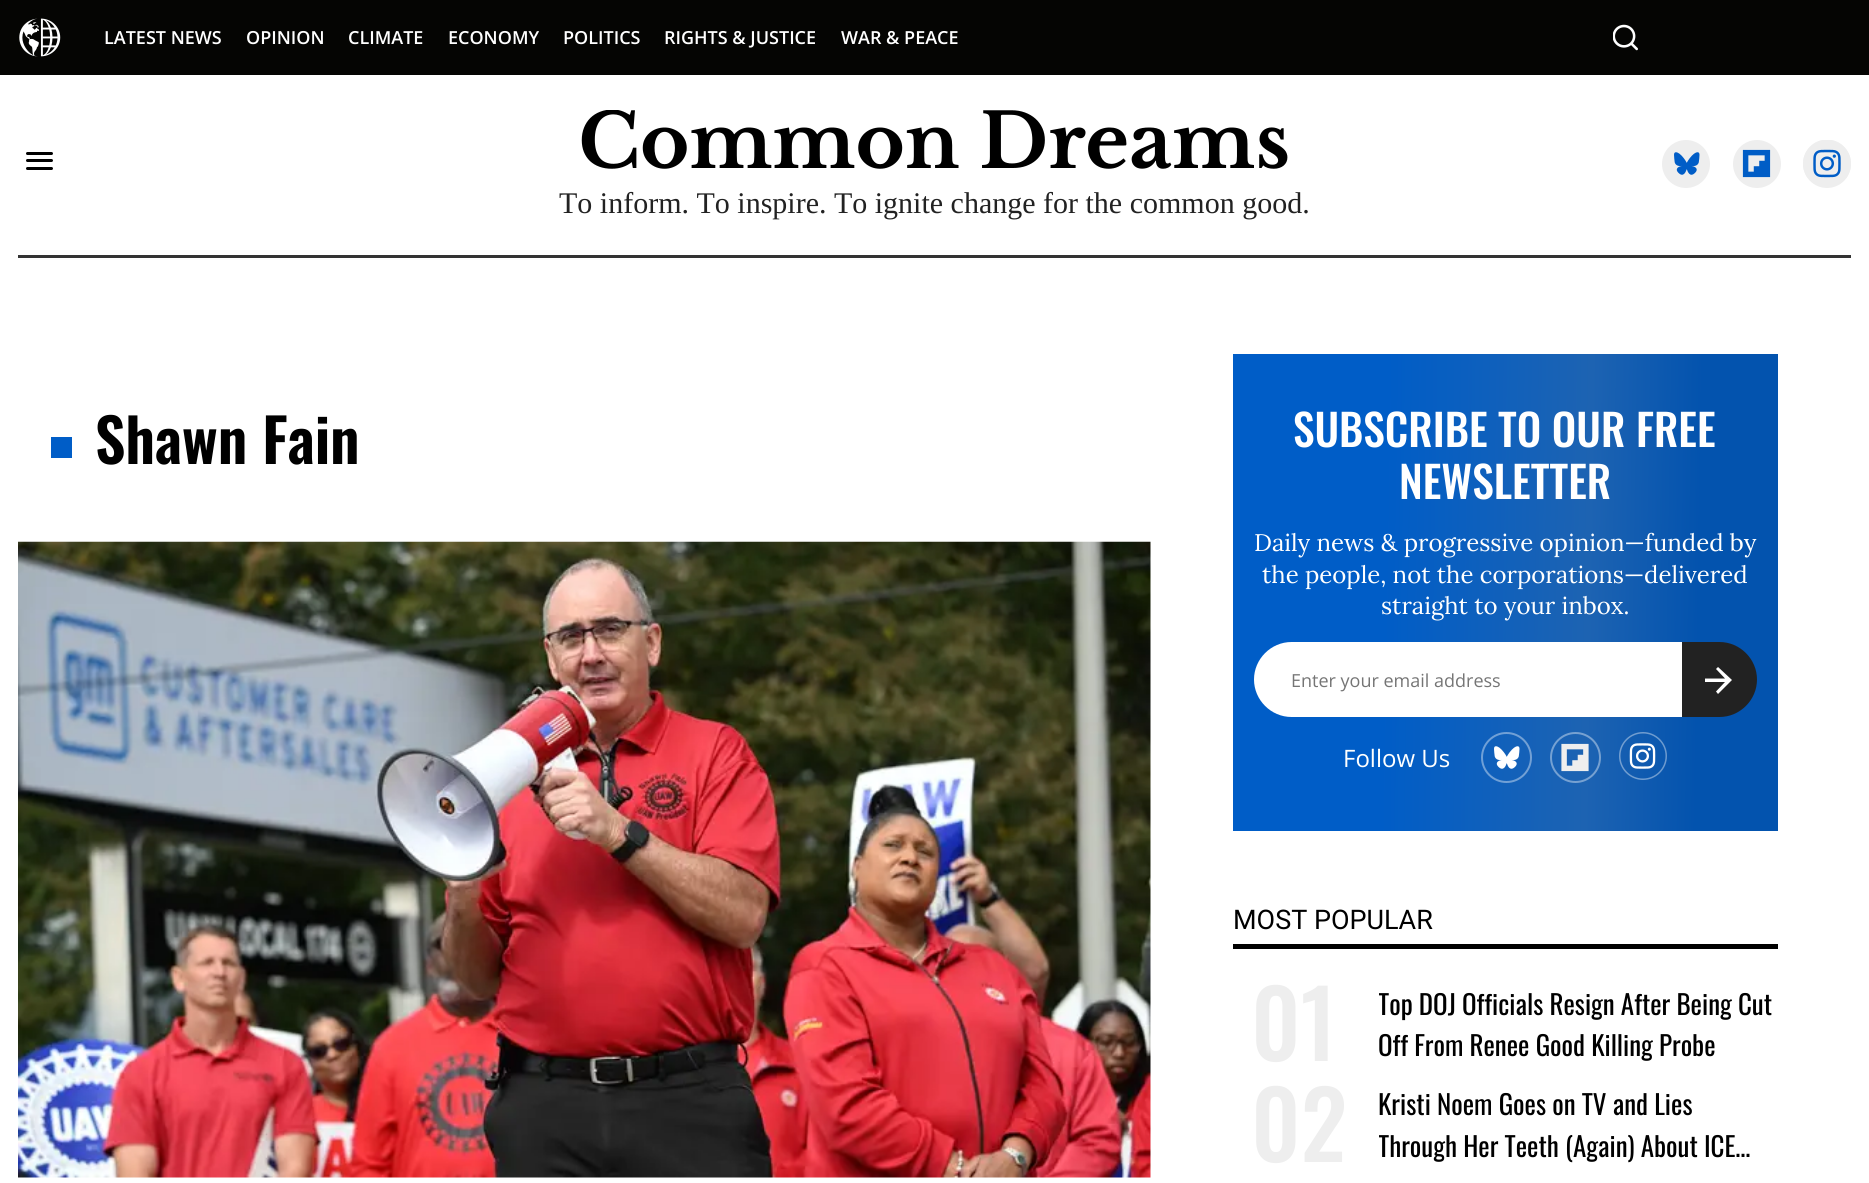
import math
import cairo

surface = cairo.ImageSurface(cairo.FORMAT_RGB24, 1869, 1183)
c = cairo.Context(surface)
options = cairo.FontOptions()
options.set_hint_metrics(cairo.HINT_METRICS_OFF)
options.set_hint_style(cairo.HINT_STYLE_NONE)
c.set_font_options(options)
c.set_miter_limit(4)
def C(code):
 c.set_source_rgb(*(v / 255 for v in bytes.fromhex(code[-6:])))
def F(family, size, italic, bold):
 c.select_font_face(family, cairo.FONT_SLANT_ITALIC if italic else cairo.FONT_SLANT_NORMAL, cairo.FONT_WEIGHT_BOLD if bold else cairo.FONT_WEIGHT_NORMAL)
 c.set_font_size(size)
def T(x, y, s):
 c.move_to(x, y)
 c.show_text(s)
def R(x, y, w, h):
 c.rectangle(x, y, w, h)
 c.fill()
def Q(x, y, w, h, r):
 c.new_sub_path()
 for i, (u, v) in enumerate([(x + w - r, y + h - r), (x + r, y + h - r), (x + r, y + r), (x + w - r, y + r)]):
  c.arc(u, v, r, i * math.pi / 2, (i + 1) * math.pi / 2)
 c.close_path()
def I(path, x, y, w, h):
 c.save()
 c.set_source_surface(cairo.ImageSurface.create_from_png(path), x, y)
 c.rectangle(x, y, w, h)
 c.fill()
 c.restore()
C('ffffff')
c.paint()
C('050503')
R(0,0,1869,75)
I('1.png',19,18,42,39)
F('Open Sans SemiBold',18,0,0)
C('ffffff')
T(104,44,'LATEST NEWS')
T(246,44,'OPINION')
T(348,44,'CLIMATE')
T(448,44,'ECONOMY')
T(563,44,'POLITICS')
T(664,44,'RIGHTS & JUSTICE')
T(841,44,'WAR & PEACE')
I('2.png',1613,24,25,27)
C('333333')
R(18,255,1833,3)
C('000000')
Q(26,152,27,3,1.5)
c.fill()
Q(26,159,27,3,1.5)
c.fill()
Q(26,167,27,3,1.5)
c.fill()
C('eeeeee')
c.arc(1686,164,24,0,2 * math.pi)
c.fill()
I('3.png',1674,152,26,23)
c.arc(1757,164,24,0,2 * math.pi)
c.fill()
I('4.png',1742,149,29,29)
c.arc(1827,164,24,0,2 * math.pi)
c.fill()
I('5.png',1803,140,48,38)
I('6.png',581,110,707,59)
F('Liberation Serif',30,0,0)
C('222222')
T(559,213,'To inform. To inspire. To ignite change for the common good.')
C('005dc7')
R(51,437,21,21)
F('Oswald SemiBold',60,0,0)
C('000000')
T(95,464,'Shawn Fain')
I('7.png',18,541,1133,637)
gradient = cairo.LinearGradient(1229,588,1782,597)
gradient.add_color_stop_rgba(.28,0,0.365,0.78,1)
gradient.add_color_stop_rgba(.65,0.114,0.388,0.698,1)
gradient.add_color_stop_rgba(.85,0.012,0.325,0.682,1)
c.set_source(gradient)
R(1233,354,545,477)
F('Oswald Medium',43.5,0,0)
C('ffffff')
T(1293,447,'SUBSCRIBE TO OUR FREE')
T(1399,499,'NEWSLETTER')
F('Lora',24,0,0)
T(1254,551,'Daily news & progressive opinion—funded by')
T(1262,583,'the people, not the corporations—delivered')
T(1381,614,'straight to your inbox.')
c.new_path()
c.move_to(1291.5,642)
c.line_to(1682,642)
c.line_to(1682,717)
c.line_to(1291.5,717)
c.curve_to(1271,717,1254,700,1254,679.5)
c.curve_to(1254,659,1271,642,1291.5,642)
c.close_path()
c.fill()
F('Open Sans',18,0,0)
C('757575')
T(1291,687,'Enter your email address')
C('222222')
c.new_path()
c.move_to(1682,642)
c.line_to(1719.5,642)
c.curve_to(1740,642,1757,659,1757,679.5)
c.curve_to(1757,700,1740,717,1719.5,717)
c.line_to(1682,717)
c.close_path()
c.fill()
C('ffffff')
c.new_path()
c.move_to(1705,678.5)
c.line_to(1705,682)
c.line_to(1725,682)
c.line_to(1716,691.5)
c.line_to(1718,694)
c.line_to(1732,680)
c.line_to(1718,667)
c.line_to(1716,669)
c.line_to(1725,678.5)
c.close_path()
c.fill()
F('Open Sans',24,0,0)
T(1343,767,'Follow Us')
c.new_path()
c.arc(1506.5,757.5,24.5,0,2 * math.pi)
c.set_source_rgba(1,1,1,0.4)
c.stroke()
I('8.png',1494,746,26,23)
c.arc(1575.5,757.5,24.5,0,2 * math.pi)
c.stroke()
I('9.png',1561,743,28,29)
I('10.png',1619,732,48,48)
C('000000')
R(1233,944,545,5)
F('Roboto',27,0,0)
T(1233,929,'MOST POPULAR')
F('Oswald Medium',93,0,0)
C('eeeeee')
T(1251,1061,'01')
c.save()
c.rectangle(1379,983,399,84)
c.clip()
F('Oswald',27,0,0)
C('000000')
T(1378,1015,'Top DOJ Officials Resign After Being Cut')
c.restore()
F('Oswald',27,0,0)
C('000000')
T(1378,1056,'Off From Renee Good Killing Probe')
F('Oswald Medium',93,0,0)
C('eeeeee')
T(1251,1162,'02')
F('Oswald',27,0,0)
C('000000')
T(1378,1115,'Kristi Noem Goes on TV and Lies')
c.save()
c.rectangle(1379,1083,399,84)
c.clip()
T(1378,1157,'Through Her Teeth (Again) About ICE…')
c.restore()
surface.write_to_png('o.png')
